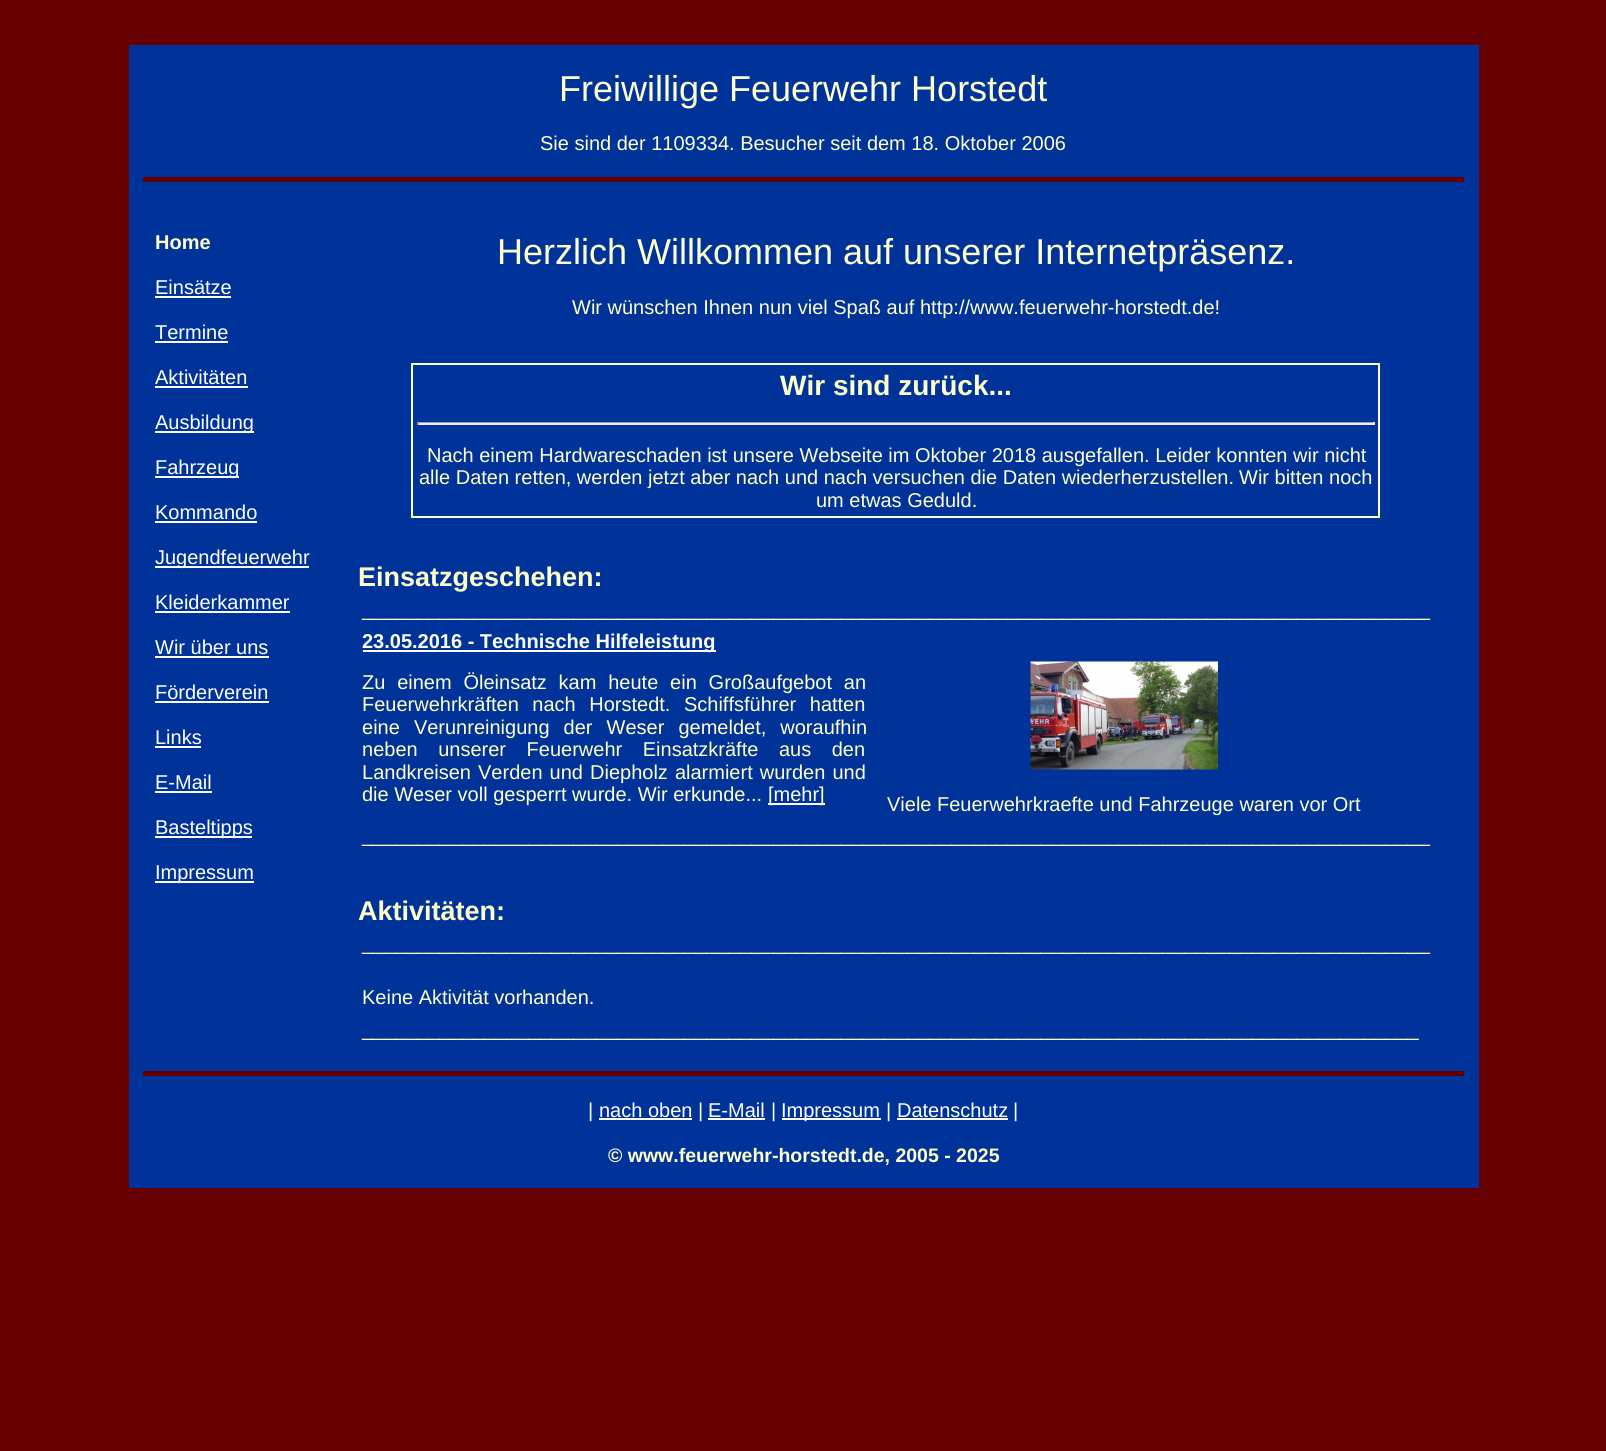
import math
import cairo

surface = cairo.ImageSurface(cairo.FORMAT_RGB24, 1606, 1451)
c = cairo.Context(surface)
options = cairo.FontOptions()
options.set_hint_metrics(cairo.HINT_METRICS_OFF)
options.set_hint_style(cairo.HINT_STYLE_NONE)
c.set_font_options(options)
c.set_miter_limit(4)
def C(code):
 c.set_source_rgb(*(v / 255 for v in bytes.fromhex(code[-6:])))
def F(family, size, italic, bold):
 c.select_font_face(family, cairo.FONT_SLANT_ITALIC if italic else cairo.FONT_SLANT_NORMAL, cairo.FONT_WEIGHT_BOLD if bold else cairo.FONT_WEIGHT_NORMAL)
 c.set_font_size(size)
def T(x, y, s):
 c.move_to(x, y)
 c.show_text(s)
def L(x, y, s, letter, word):
 c.move_to(x, y)
 for ch in s:
  c.show_text(ch)
  c.rel_move_to(letter + word * (ch == ' '), 0)
def R(x, y, w, h):
 c.rectangle(x, y, w, h)
 c.fill()
def I(path, x, y, w, h):
 c.save()
 c.set_source_surface(cairo.ImageSurface.create_from_png(path), x, y)
 c.rectangle(x, y, w, h)
 c.fill()
 c.restore()
C('660000')
c.paint()
C('003399')
R(129,45,1350,132)
F('Liberation Sans',36,0,0)
C('ffffcc')
T(559,101,'Freiwillige Feuerwehr Horstedt')
F('Liberation Sans',20,0,0)
T(540,150,'Sie sind der 1109334. Besucher seit dem 18. Oktober 2006')
C('003399')
R(129,177,14,5)
R(1464,177,15,5)
R(129,182,1350,889)
F('Liberation Sans',20,0,1)
C('ffffcc')
T(155,249,'Home')
F('Liberation Sans',20,0,0)
C('ffffff')
T(155,294,'Einsätze')
R(155,296,76,2)
T(155,339,'Termine')
R(155,341,73,2)
T(155,384,'Aktivitäten')
R(155,386,93,2)
R(155,431,99,2)
T(155,429,'Ausbildung')
R(155,476,84,2)
T(155,474,'Fahrzeug')
T(155,519,'Kommando')
R(155,521,102,2)
R(155,566,154,2)
T(155,564,'Jugendfeuerwehr')
T(155,609,'Kleiderkammer')
R(155,611,135,2)
T(155,654,'Wir über uns')
R(155,656,114,2)
T(155,699,'Förderverein')
R(155,701,114,2)
T(155,744,'Links')
R(155,746,46,2)
T(155,789,'E-Mail')
R(155,791,57,2)
R(155,836,97,2)
T(155,834,'Basteltipps')
R(155,881,99,2)
T(155,879,'Impressum')
F('Liberation Sans',36,0,0)
C('ffffcc')
T(497,264,'Herzlich Willkommen auf unserer Internetpräsenz.')
F('Liberation Sans',20,0,0)
T(572,314,'Wir wünschen Ihnen nun viel Spaß auf http://www.feuerwehr-horstedt.de!')
c.rectangle(412,364,967,153)
c.stroke()
F('Liberation Sans',28,0,1)
T(780,395,'Wir sind zurück...')
C('9f9f9f')
R(417,422,957,1)
C('eeeeee')
R(1373,422,2,3)
R(417,423,957,2)
C('9f9f9f')
R(417,422,2,3)
F('Liberation Sans',20,0,0)
C('ffffcc')
T(427,462,'Nach einem Hardwareschaden ist unsere Webseite im Oktober 2018 ausgefallen. Leider konnten wir nicht')
T(419,484,'alle Daten retten, werden jetzt aber nach und nach versuchen die Daten wiederherzustellen.')
T(1239,484,'Wir bitten noch')
T(816,507,'um etwas Geduld.')
F('Liberation Sans',27,0,1)
T(358,586,'Einsatzgeschehen:')
F('Liberation Sans',20,0,0)
T(362,616,'________________________________________________________________________________________________')
C('ffffff')
R(363,650,353,2)
F('Liberation Sans',20,0,1)
T(362,648,'23.05.2016 - Technische Hilfeleistung')
F('Liberation Sans',20,0,0)
C('ffffcc')
L(362,689,'Zu einem Öleinsatz kam heute ein Großaufgebot an',0,6.25)
L(362,711,'Feuerwehrkräften nach Horstedt. Schiffsführer hatten',0,8)
L(362,734,'eine Verunreinigung der Weser gemeldet, woraufhin',0,8.5)
L(362,756,'neben unserer Feuerwehr Einsatzkräfte aus den',0,15)
L(362,779,'Landkreisen Verden und Diepholz alarmiert wurden und',0,1.5)
T(362,801,'die Weser voll gesperrt wurde. Wir erkunde...')
C('ffffff')
R(768,803,57,2)
T(768,801,'[mehr]')
I('1.png',1030,661,188,109)
C('ffffcc')
T(887,811,'Viele Feuerwehrkraefte und Fahrzeuge waren vor Ort')
T(362,842,'________________________________________________________________________________________________')
F('Liberation Sans',27,0,1)
T(358,920,'Aktivitäten:')
F('Liberation Sans',20,0,0)
T(362,950,'________________________________________________________________________________________________')
T(362,1004,'Keine Aktivität vorhanden.')
T(362,1036,'_______________________________________________________________________________________________')
C('003399')
R(129,1071,14,5)
R(1464,1071,15,5)
R(129,1076,1350,112)
C('ffffcc')
T(588,1117,'|')
C('ffffff')
T(599,1117,'nach oben')
R(599,1118,93,2)
C('ffffcc')
T(698,1117,'|')
C('ffffff')
T(708,1117,'E-Mail')
R(708,1118,57,2)
C('ffffcc')
T(771,1117,'|')
C('ffffff')
R(782,1118,99,2)
T(781,1117,'Impressum')
C('ffffcc')
T(886,1117,'|')
C('ffffff')
T(897,1117,'Datenschutz')
R(897,1118,111,2)
C('ffffcc')
T(1013,1117,'|')
F('Liberation Sans',19.5,0,1)
T(608,1162,'© www.feuerwehr-horstedt.de, 2005 - 2025')
surface.write_to_png('o.png')
